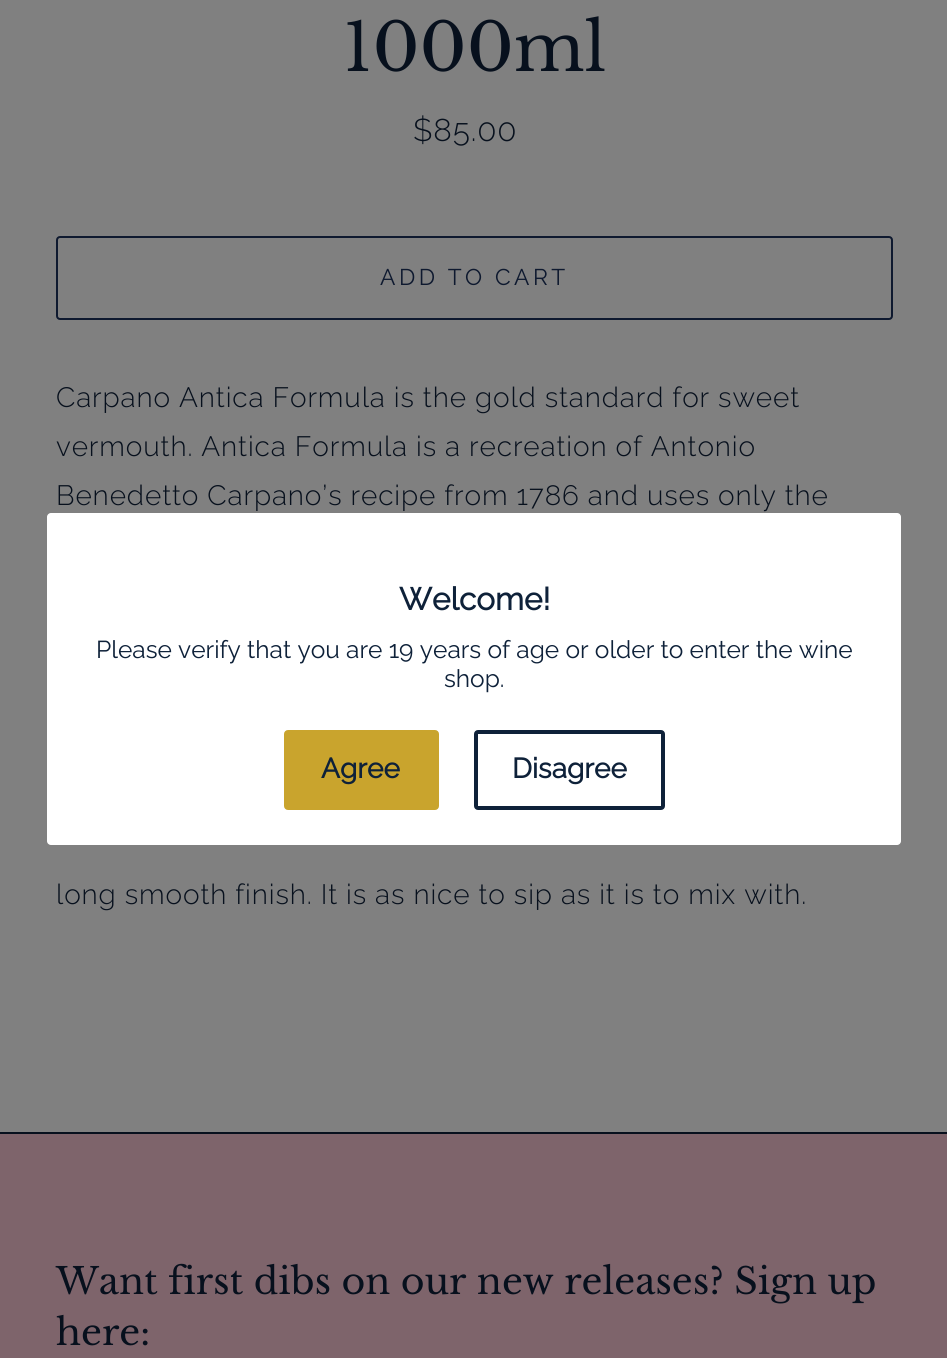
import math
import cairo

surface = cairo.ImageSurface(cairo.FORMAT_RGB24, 947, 1358)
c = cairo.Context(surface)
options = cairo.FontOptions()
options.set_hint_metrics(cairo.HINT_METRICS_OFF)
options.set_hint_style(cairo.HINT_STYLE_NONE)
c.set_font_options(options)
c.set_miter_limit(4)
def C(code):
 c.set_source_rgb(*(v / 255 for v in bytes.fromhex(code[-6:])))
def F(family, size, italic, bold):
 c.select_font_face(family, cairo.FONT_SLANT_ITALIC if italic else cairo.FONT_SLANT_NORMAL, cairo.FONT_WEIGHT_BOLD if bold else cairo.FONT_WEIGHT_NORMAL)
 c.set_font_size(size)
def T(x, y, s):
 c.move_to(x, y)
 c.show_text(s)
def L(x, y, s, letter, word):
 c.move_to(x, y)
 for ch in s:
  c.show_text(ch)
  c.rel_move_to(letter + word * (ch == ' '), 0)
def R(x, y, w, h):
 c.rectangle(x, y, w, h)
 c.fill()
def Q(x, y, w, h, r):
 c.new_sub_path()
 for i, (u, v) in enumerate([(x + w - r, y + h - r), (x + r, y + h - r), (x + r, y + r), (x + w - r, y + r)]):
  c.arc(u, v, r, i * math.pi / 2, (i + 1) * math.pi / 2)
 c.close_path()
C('808080')
c.paint()
F('Libre Baskerville',66,0,0)
C('07101d')
T(343,71,'1000ml')
F('Raleway Light',31.5,0,0)
L(413,141,'$85.00',.88,0)
Q(57,237,835,82,3)
C('0e192f')
c.stroke()
F('Raleway',22.75,0,0)
L(380,285,'ADD TO CART',3.5,0)
F('Raleway Light',28,0,0)
C('07101d')
L(56,407,'Carpano Antica Formula is the gold standard for sweet',.88,0)
L(56,456,'vermouth. Antica Formula is a recreation of Antonio',.88,0)
L(56,505,'Benedetto Carpano’s recipe from 1786 and uses only the',.88,0)
L(56,904,'long smooth finish. It is as nice to sip as it is to mix with.',.88,0)
C('ffffff')
Q(47,513,854,332,4)
c.fill()
F('Raleway',31.5,0,1)
C('0e2139')
T(399,610,'Welcome!')
F('Raleway',24.5,0,0)
T(96,658,'Please verify that you are 19 years of age or older to enter the wine')
T(444,687,'shop.')
C('c9a42d')
Q(286,732,151,76,2)
c.fill_preserve()
c.set_line_width(4)
c.stroke()
F('Raleway',28,0,1)
C('0e2139')
T(321,778,'Agree')
Q(476,732,187,76,2)
c.stroke()
T(512,778,'Disagree')
C('7e646b')
R(0,1134,947,224)
C('07101d')
R(0,1132,947,2)
F('Libre Baskerville',36.4,0,0)
T(56,1294,'Want first dibs on our new releases? Sign up')
T(56,1345,'here:')
surface.write_to_png('o.png')
